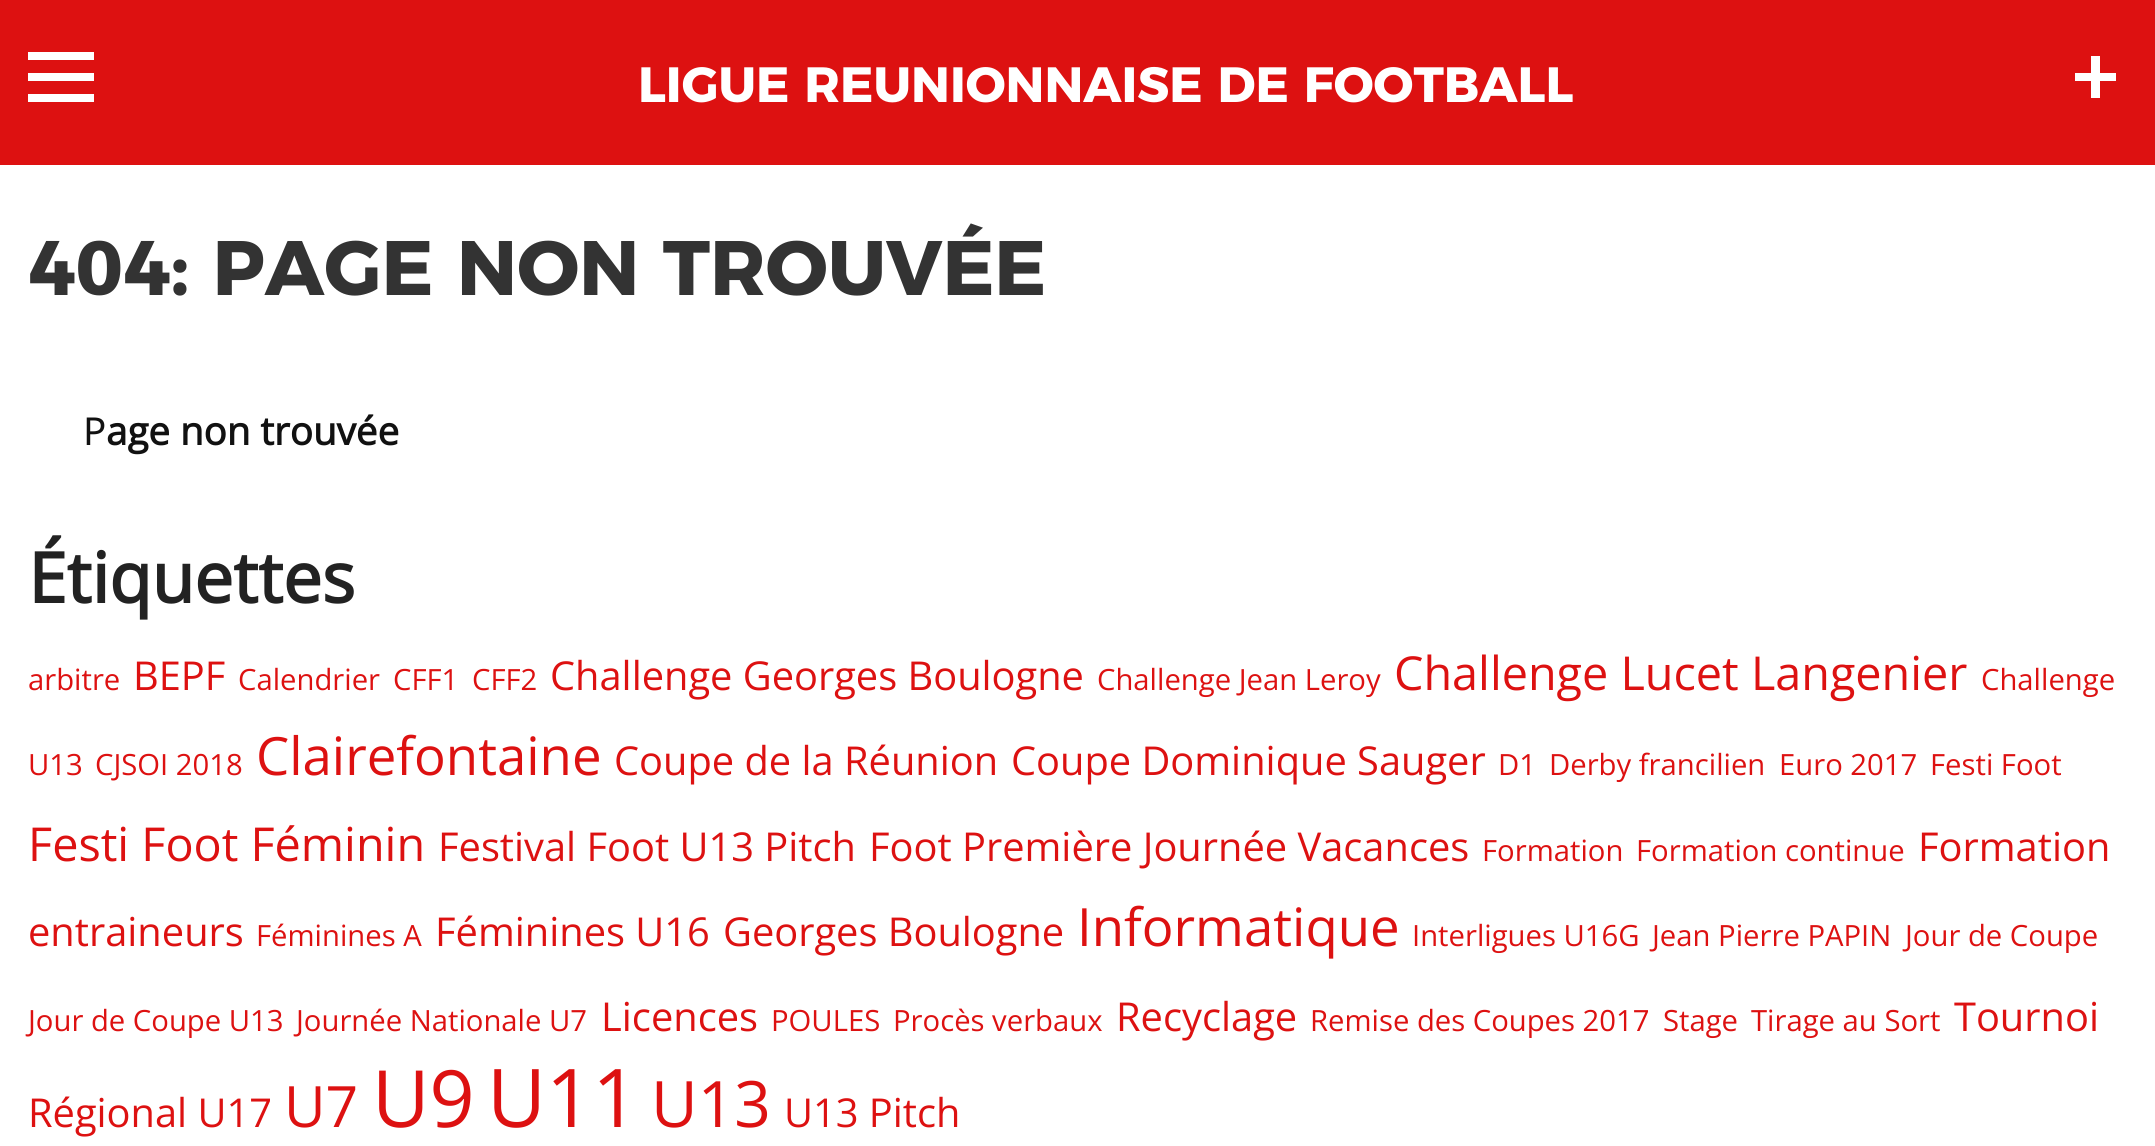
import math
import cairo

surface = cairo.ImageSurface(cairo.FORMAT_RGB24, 2155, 1146)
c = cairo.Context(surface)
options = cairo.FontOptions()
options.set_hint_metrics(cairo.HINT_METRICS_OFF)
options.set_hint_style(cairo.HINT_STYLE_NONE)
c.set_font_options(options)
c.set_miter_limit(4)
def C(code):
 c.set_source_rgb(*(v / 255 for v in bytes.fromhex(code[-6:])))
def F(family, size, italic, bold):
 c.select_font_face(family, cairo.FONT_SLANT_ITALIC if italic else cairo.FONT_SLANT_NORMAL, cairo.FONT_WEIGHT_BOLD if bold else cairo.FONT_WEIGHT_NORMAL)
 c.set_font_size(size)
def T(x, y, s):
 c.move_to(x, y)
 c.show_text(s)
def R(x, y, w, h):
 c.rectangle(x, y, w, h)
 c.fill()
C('ffffff')
c.paint()
C('dd1111')
R(0,0,2155,165)
C('ffffff')
c.new_path()
c.move_to(28,102)
c.line_to(28,94)
c.line_to(94,94)
c.line_to(94,102)
c.close_path()
c.move_to(28,52)
c.line_to(94,52)
c.line_to(94,60)
c.line_to(28,60)
c.close_path()
c.move_to(28,81)
c.line_to(28,73)
c.line_to(94,73)
c.line_to(94,81)
c.close_path()
c.fill()
F('Montserrat',49.5,0,1)
T(638,102,'LIGUE REUNIONNAISE DE FOOTBALL')
c.new_path()
c.move_to(2116,73)
c.line_to(2116,81)
c.line_to(2100,81)
c.line_to(2100,98)
c.line_to(2091,98)
c.line_to(2091,81)
c.line_to(2075,81)
c.line_to(2075,73)
c.line_to(2091,73)
c.line_to(2091,56)
c.line_to(2100,56)
c.line_to(2100,73)
c.close_path()
c.fill()
F('Montserrat',77,0,1)
C('333333')
T(28,295,'404: PAGE NON TROUVÉE')
F('Noto Sans',38.5,0,0)
C('111111')
T(83,445,'P')
F('Open Sans',38.5,0,1)
T(106,445,'age non trouvée')
F('Open Sans',69.5,0,1)
C('222222')
T(28,603,'Étiquettes')
F('Open Sans',29.25,0,0)
C('dd1111')
T(28,690,'arbitre')
F('Open Sans',39.8,0,0)
T(133,690,'BEPF')
F('Open Sans',29.25,0,0)
T(238,690,'Calendrier')
T(393,690,'CFF1')
T(472,690,'CFF2')
F('Open Sans',39.8,0,0)
T(550,690,'Challenge Georges Boulogne')
F('Open Sans',29.25,0,0)
T(1097,690,'Challenge Jean Leroy')
F('Open Sans',46.75,0,0)
T(1394,690,'Challenge Lucet Langenier')
F('Open Sans',29.25,0,0)
T(1981,690,'Challenge')
T(28,775,'U13')
T(95,775,'CJSOI 2018')
F('Open Sans',52.75,0,0)
T(256,775,'Clairefontaine')
F('Open Sans',39.8,0,0)
T(614,775,'Coupe de la Réunion')
T(1011,775,'Coupe Dominique Sauger')
F('Open Sans',29.25,0,0)
T(1498,775,'D1')
T(1549,775,'Derby francilien')
T(1779,775,'Euro 2017')
T(1930,775,'Festi Foot')
F('Open Sans',46.75,0,0)
T(28,861,'Festi Foot Féminin')
F('Open Sans',39.8,0,0)
T(438,861,'Festival Foot U13 Pitch')
T(869,861,'Foot Première Journée Vacances')
F('Open Sans',29.25,0,0)
T(1482,861,'Formation')
T(1636,861,'Formation continue')
F('Open Sans',39.8,0,0)
T(1918,861,'Formation')
T(28,946,'entraineurs')
F('Open Sans',29.25,0,0)
T(256,946,'Féminines A')
F('Open Sans',39.8,0,0)
T(435,946,'Féminines U16')
T(723,946,'Georges Boulogne')
F('Open Sans',52.75,0,0)
T(1077,946,'Informatique')
F('Open Sans',29.25,0,0)
T(1412,946,'Interligues U16G')
T(1652,946,'Jean Pierre PAPIN')
T(1905,946,'Jour de Coupe')
T(28,1031,'Jour de Coupe U13')
T(296,1031,'Journée Nationale U7')
F('Open Sans',39.8,0,0)
T(601,1031,'Licences')
F('Open Sans',29.25,0,0)
T(771,1031,'POULES')
T(893,1031,'Procès verbaux')
F('Open Sans',39.8,0,0)
T(1116,1031,'Recyclage')
F('Open Sans',29.25,0,0)
T(1310,1031,'Remise des Coupes 2017')
T(1663,1031,'Stage')
T(1751,1031,'Tirage au Sort')
F('Open Sans',39.8,0,0)
T(1954,1031,'Tournoi')
T(28,1127,'Régional U17')
F('Open Sans',57,0,0)
T(284,1127,'U7')
F('Open Sans',79,0,0)
T(372,1127,'U9')
F('Open Sans',81,0,0)
T(487,1127,'U11')
F('Open Sans',64,0,0)
T(651,1127,'U13')
F('Open Sans',39.8,0,0)
T(784,1127,'U13 Pitch')
surface.write_to_png('o.png')
